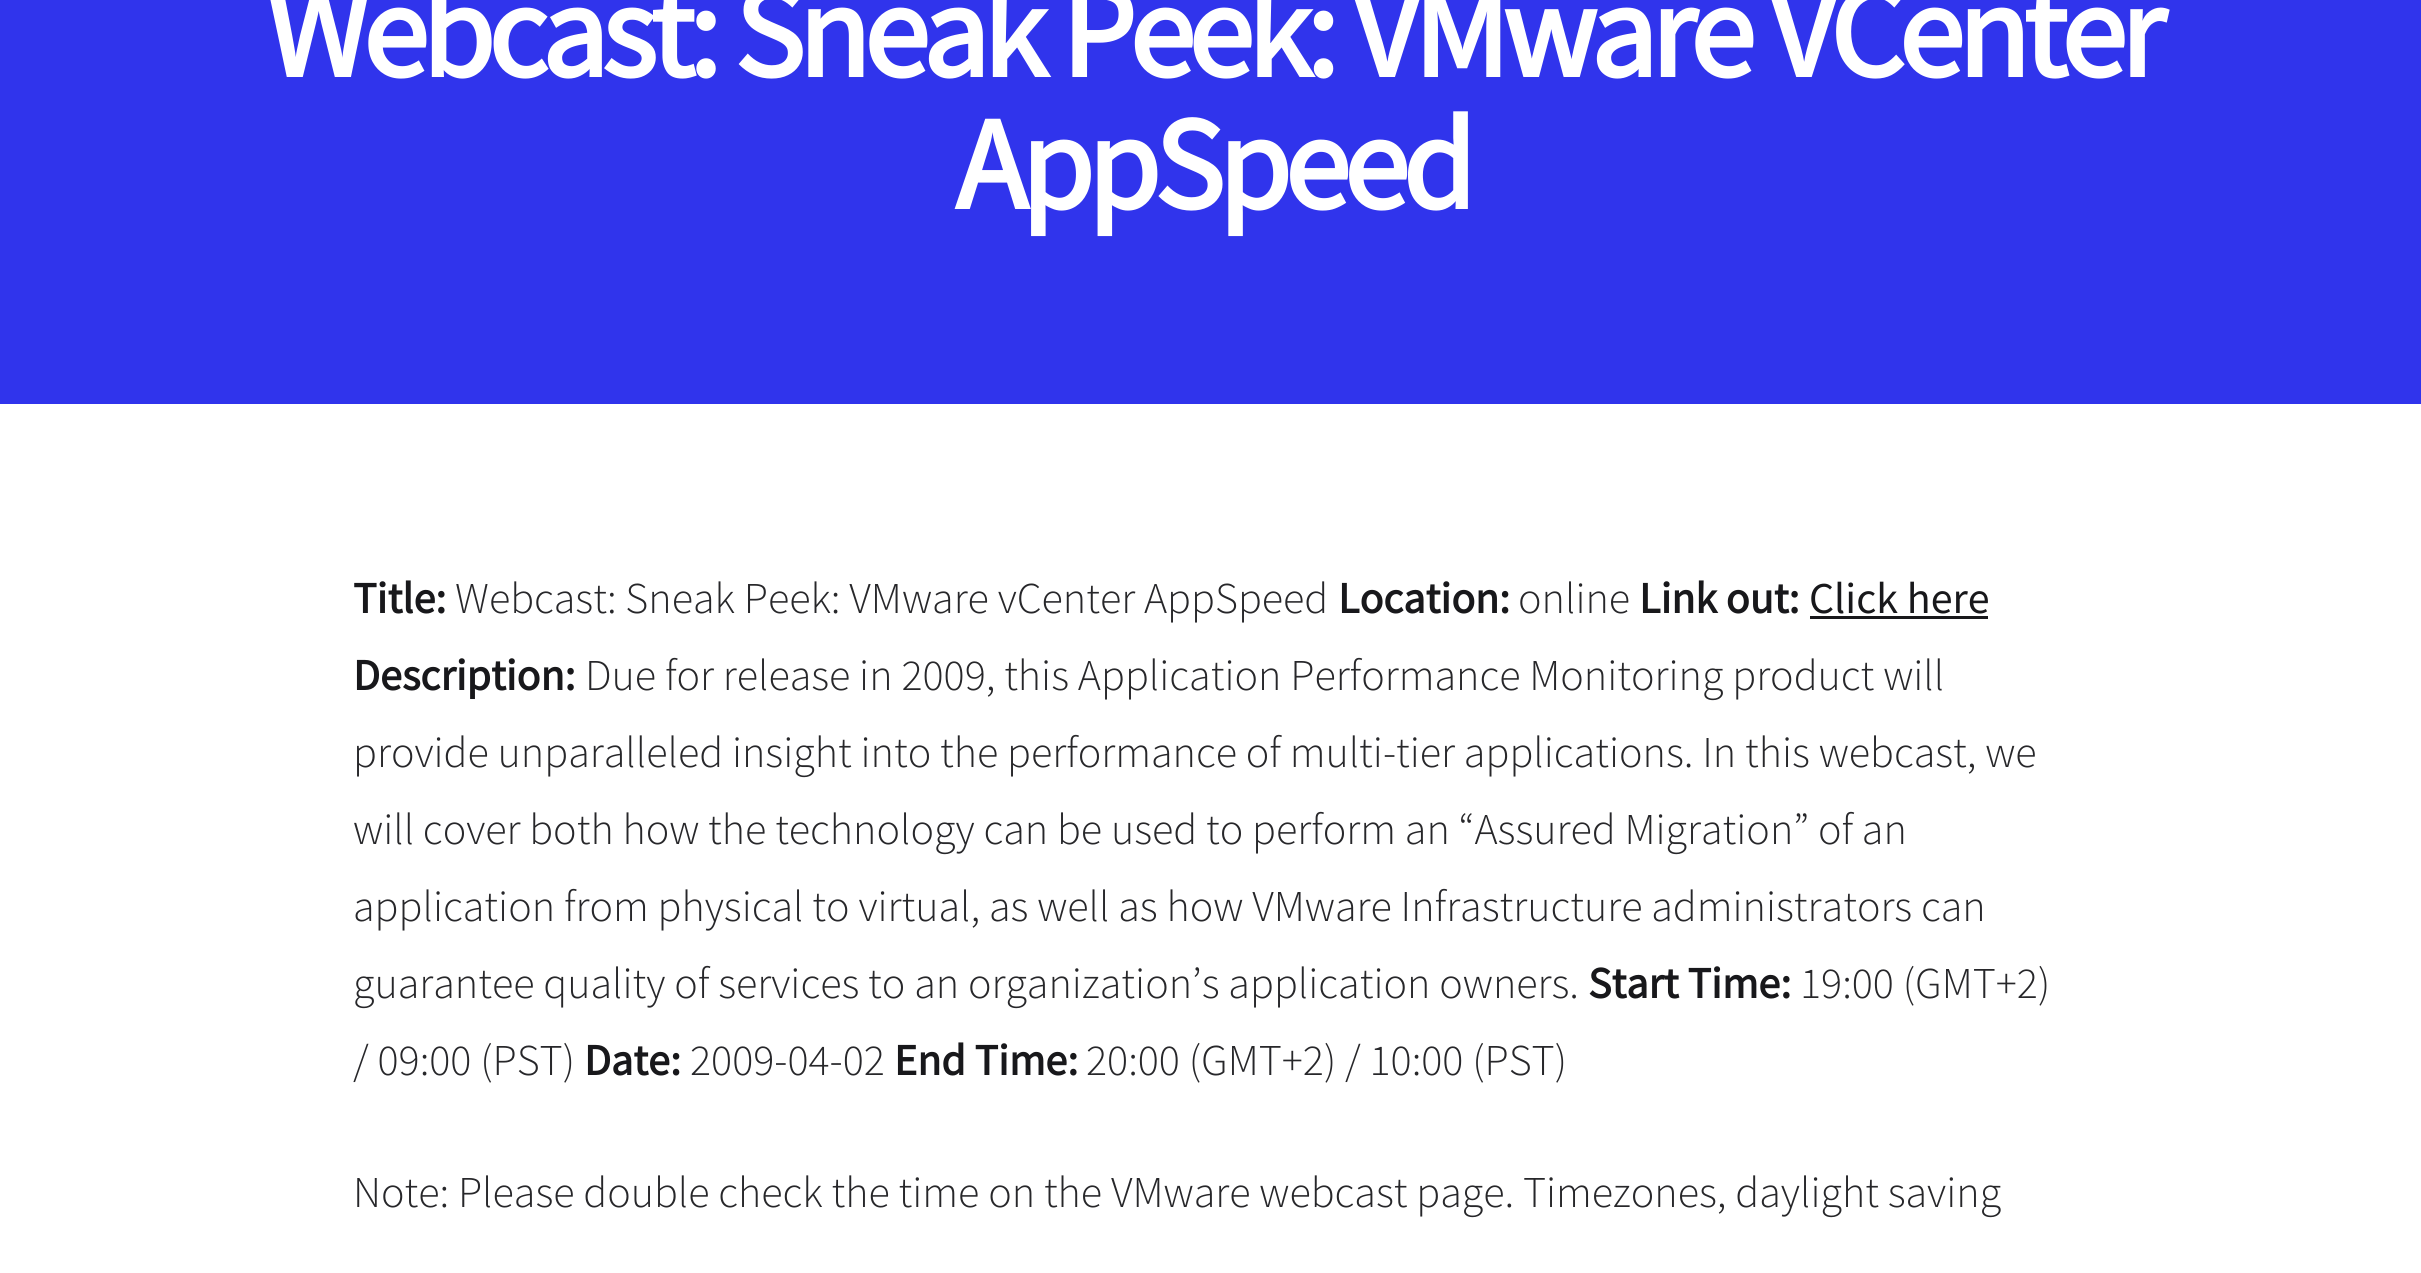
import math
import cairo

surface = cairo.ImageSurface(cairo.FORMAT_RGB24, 2421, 1273)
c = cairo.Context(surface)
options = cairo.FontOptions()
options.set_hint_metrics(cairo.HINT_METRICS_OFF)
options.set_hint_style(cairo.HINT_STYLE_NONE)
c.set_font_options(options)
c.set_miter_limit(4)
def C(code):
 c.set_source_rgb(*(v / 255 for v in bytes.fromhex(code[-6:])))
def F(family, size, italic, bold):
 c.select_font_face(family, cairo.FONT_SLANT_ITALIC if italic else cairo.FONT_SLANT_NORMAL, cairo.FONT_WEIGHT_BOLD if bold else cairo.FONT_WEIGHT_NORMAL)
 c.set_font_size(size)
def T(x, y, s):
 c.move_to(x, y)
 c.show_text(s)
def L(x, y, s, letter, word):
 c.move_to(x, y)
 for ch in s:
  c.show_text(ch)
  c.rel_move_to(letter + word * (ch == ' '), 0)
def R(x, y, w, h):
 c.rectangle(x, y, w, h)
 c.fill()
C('ffffff')
c.paint()
C('3034ec')
R(0,0,2421,404)
F('Source Sans Pro',132,0,1)
C('ffffff')
L(265,77,'Webcast: Sneak Peek: VMware VCenter',-6.6,0)
L(955,209,'AppSpeed',-6.6,0)
F('Source Sans Pro',44,0,1)
C('18181b')
T(353,613,'Title:')
F('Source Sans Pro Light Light',44,0,0)
C('27272a')
T(455,613,'Webcast: Sneak Peek: VMware vCenter AppSpeed')
F('Source Sans Pro',44,0,1)
C('18181b')
T(1338,613,'Location:')
F('Source Sans Pro Light Light',44,0,0)
C('27272a')
T(1518,613,'online')
F('Source Sans Pro',44,0,1)
C('18181b')
T(1639,613,'Link out:')
F('Source Sans Pro',44,0,0)
T(1809,613,'Click here')
R(1810,616,178,3)
F('Source Sans Pro',44,0,1)
T(353,690,'Description:')
F('Source Sans Pro Light Light',44,0,0)
C('27272a')
T(585,690,'Due for release in 2009, this Application Performance Monitoring product will')
T(353,767,'provide unparalleled insight into the performance of multi-tier applications. In this webcast, we')
T(353,844,'will cover both how the technology can be used to perform an “Assured Migration” of an')
T(353,921,'application from physical to virtual, as well as how VMware Infrastructure administrators can')
T(353,998,'guarantee quality of services to an organization’s application owners.')
F('Source Sans Pro',44,0,1)
C('18181b')
T(1588,998,'Start Time:')
F('Source Sans Pro Light Light',44,0,0)
C('27272a')
T(1800,998,'19:00 (GMT+2)')
T(353,1075,'/ 09:00 (PST)')
F('Source Sans Pro',44,0,1)
C('18181b')
T(584,1075,'Date:')
F('Source Sans Pro Light Light',44,0,0)
C('27272a')
T(690,1075,'2009-04-02')
F('Source Sans Pro',44,0,1)
C('18181b')
T(894,1075,'End Time:')
F('Source Sans Pro Light Light',44,0,0)
C('27272a')
T(1086,1075,'20:00 (GMT+2) / 10:00 (PST)')
T(353,1207,'Note: Please double check the time on the VMware webcast page. Timezones, daylight saving')
surface.write_to_png('o.png')
